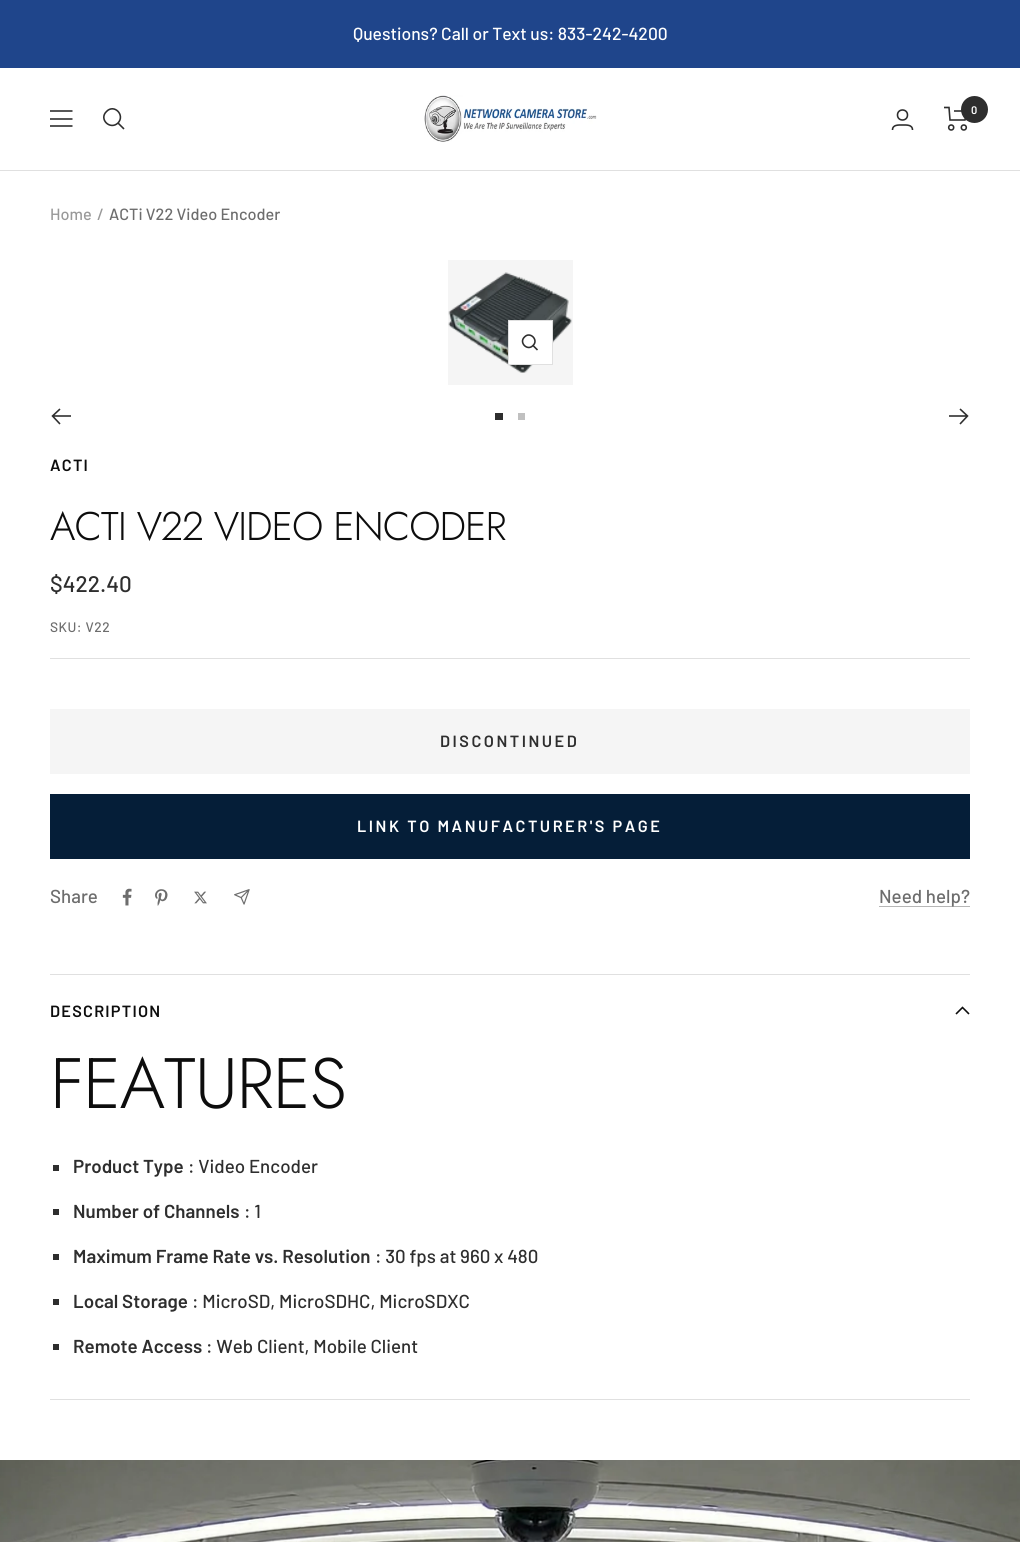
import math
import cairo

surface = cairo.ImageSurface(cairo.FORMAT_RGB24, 1020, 1542)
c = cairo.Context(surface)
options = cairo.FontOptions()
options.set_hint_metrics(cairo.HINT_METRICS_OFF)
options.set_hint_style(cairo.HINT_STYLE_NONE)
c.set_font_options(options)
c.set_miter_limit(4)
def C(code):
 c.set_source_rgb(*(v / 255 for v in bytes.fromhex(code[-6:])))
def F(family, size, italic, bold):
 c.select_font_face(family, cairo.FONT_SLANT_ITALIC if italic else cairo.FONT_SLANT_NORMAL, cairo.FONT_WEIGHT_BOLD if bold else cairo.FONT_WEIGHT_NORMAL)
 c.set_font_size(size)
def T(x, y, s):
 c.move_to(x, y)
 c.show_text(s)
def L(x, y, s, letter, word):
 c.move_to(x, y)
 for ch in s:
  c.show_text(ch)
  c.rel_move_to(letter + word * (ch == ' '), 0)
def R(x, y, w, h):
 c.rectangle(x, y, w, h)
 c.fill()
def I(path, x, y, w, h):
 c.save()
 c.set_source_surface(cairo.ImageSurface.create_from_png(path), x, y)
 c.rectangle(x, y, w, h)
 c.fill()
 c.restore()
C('ffffff')
c.paint()
C('1f458b')
R(0,0,1020,68)
F('Barlow Medium',17.5,0,0)
C('ffffff')
T(353,40,'Questions? Call or Text us: 833-242-4200')
C('e0e0e0')
R(0,170,1020,1)
c.new_path()
c.move_to(50,111)
c.line_to(72.5,111)
c.move_to(50,126)
c.line_to(72.5,126)
c.close_path()
c.move_to(50,119)
c.line_to(72.5,119)
c.close_path()
C('2e2e2e')
c.set_line_width(1.6)
c.stroke()
c.new_path()
c.move_to(118,123)
c.curve_to(125.5,115,114,103.5,106.5,111.5)
c.curve_to(98.5,119,110,130.5,118,123)
c.close_path()
c.move_to(118,123)
c.line_to(124,129)
c.stroke()
I('1.png',424,95,173,47)
c.arc(902.5,115,5,0,2 * math.pi)
c.stroke()
c.new_path()
c.move_to(892.5,130)
c.curve_to(892.5,124.5,898.5,125,902.5,125)
c.curve_to(906.5,125,912.5,124.5,912.5,130)
c.stroke()
c.new_path()
c.move_to(944,107.5)
c.line_to(949,107.5)
c.line_to(950,120)
c.line_to(965,120)
c.line_to(967.5,111)
c.line_to(954,111)
c.stroke()
c.arc(951.2,127.5,2.5,0,2 * math.pi)
c.stroke()
c.arc(963.8,127.5,2.5,0,2 * math.pi)
c.stroke()
c.arc(974.5,109.5,13.5,0,2 * math.pi)
c.fill()
F('Barlow SemiBold',11,0,0)
C('ffffff')
T(971,114,'0')
F('Barlow Medium',16.25,0,0)
C('999999')
T(50,220,'Home')
T(97,220,'/')
C('6d6d6d')
T(109,220,'ACTi V22 Video Encoder')
C('f5f5f5')
R(448,260,125,125)
I('2.png',448,272,124,101)
C('ffffff')
c.rectangle(508.5,320.5,44,44)
c.fill_preserve()
C('e0e0e0')
c.set_line_width(1)
c.stroke()
c.new_path()
c.move_to(533,345.5)
c.curve_to(539,340,530,331,524.5,337)
c.curve_to(518.5,342.5,527.5,351.5,533,345.5)
c.close_path()
c.move_to(533,345.5)
c.line_to(537.5,350)
C('2e2e2e')
c.set_line_width(1.6)
c.stroke()
c.new_path()
c.move_to(71,416)
c.line_to(52.5,416)
c.move_to(60,409)
c.line_to(52.5,416)
c.line_to(60,424)
c.stroke()
R(495,413,8,7)
C('c0c0c0')
R(518,413,7,7)
c.new_path()
c.move_to(949,416)
c.line_to(967.5,416)
c.move_to(960,409)
c.line_to(967.5,416)
c.line_to(960,424)
C('2e2e2e')
c.stroke()
C('e0e0e0')
R(50,658,920,1)
F('Barlow SemiBold',16.25,0,0)
C('0d0d0d')
L(50,471,'ACTI',1.25,0)
F('Jost Light',40,0,0)
L(50,540,'ACTI V22 VIDEO ENCODER',-1,0)
F('Barlow Medium',22.5,0,0)
C('2e2e2e')
T(50,592,'$422.40')
F('Barlow Medium',13.75,0,0)
C('6d6d6d')
L(50,632,'SKU: V22',.5,0)
C('f5f5f5')
R(50,709,920,65)
F('Barlow SemiBold',16.25,0,0)
C('2e2e2e')
L(440,747,'DISCONTINUED',2.5,0)
C('051e38')
R(50,794,920,65)
C('ffffff')
L(357,832,'LINK TO MANUFACTURER\'S PAGE',2.5,0)
F('Barlow Medium',18.75,0,0)
C('6d6d6d')
T(50,903,'Share')
I('3.png',122,888,10,18)
I('4.png',155,889,13,17)
I('5.png',194,891,13,13)
I('6.png',234,889,16,16)
C('b6b6b6')
R(879,906,91,1)
C('6d6d6d')
T(879,903,'Need help?')
C('e0e0e0')
R(50,974,920,1)
R(50,1399,920,1)
F('Barlow SemiBold',16.25,0,0)
C('0d0d0d')
L(50,1017,'DESCRIPTION',1.25,0)
c.new_path()
c.move_to(969,1014)
c.line_to(962.5,1007.5)
c.line_to(956,1014)
c.stroke()
F('Jost Light',71.25,0,0)
L(50,1108,'FEATURES',-1.25,0)
C('2e2e2e')
R(53,1165,6,6)
F('Barlow SemiBold',18.75,0,0)
T(73,1173,'Product Type')
F('Barlow Medium',18.75,0,0)
T(188,1173,': Video Encoder')
R(53,1209,6,6)
F('Barlow SemiBold',18.75,0,0)
T(73,1218,'Number of Channels')
F('Barlow Medium',18.75,0,0)
T(244,1218,': 1')
R(53,1254,6,6)
F('Barlow SemiBold',18.75,0,0)
T(73,1263,'Maximum Frame Rate vs. Resolution')
F('Barlow Medium',18.75,0,0)
T(375,1263,': 30 fps at 960 x 480')
R(53,1299,6,6)
F('Barlow SemiBold',18.75,0,0)
T(73,1308,'Local Storage')
F('Barlow Medium',18.75,0,0)
T(192,1308,': MicroSD, MicroSDHC, MicroSDXC')
R(53,1344,6,6)
F('Barlow SemiBold',18.75,0,0)
T(73,1353,'Remote Access')
F('Barlow Medium',18.75,0,0)
T(206,1353,': Web Client, Mobile Client')
I('7.png',0,1460,1020,82)
surface.write_to_png('o.png')
